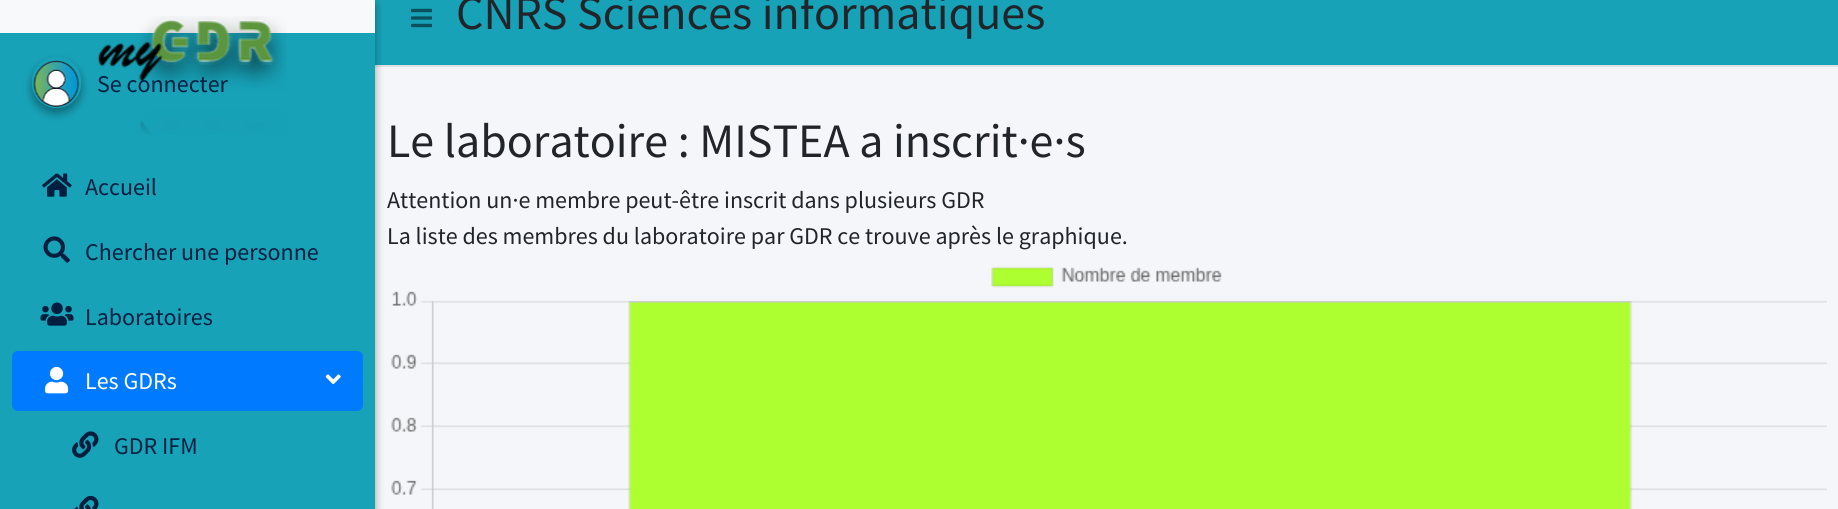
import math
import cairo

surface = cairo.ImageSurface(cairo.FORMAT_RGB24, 1838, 509)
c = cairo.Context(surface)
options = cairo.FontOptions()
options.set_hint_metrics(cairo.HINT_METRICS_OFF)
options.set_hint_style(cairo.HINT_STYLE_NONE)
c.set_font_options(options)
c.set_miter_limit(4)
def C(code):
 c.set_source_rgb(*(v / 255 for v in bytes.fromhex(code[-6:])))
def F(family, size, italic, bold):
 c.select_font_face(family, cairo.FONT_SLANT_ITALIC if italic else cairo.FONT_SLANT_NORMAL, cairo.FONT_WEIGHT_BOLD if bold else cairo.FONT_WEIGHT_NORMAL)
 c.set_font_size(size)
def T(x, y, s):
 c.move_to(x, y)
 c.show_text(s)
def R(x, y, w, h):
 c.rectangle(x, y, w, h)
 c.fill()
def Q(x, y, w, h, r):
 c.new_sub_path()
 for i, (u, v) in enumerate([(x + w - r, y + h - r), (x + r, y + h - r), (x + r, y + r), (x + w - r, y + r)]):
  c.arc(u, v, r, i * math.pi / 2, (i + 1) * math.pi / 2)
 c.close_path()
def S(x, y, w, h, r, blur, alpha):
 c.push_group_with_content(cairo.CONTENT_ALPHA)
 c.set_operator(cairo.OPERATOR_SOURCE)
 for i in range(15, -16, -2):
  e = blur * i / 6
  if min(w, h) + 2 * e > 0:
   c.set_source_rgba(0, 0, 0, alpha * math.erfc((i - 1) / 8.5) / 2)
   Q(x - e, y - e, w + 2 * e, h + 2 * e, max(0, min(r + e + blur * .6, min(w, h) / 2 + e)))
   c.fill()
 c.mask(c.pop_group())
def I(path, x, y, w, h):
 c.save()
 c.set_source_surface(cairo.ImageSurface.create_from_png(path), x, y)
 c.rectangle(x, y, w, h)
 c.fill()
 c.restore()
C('f4f6f9')
c.paint()
C('17a2b8')
R(375,0,1463,65)
C('dee2e6')
R(375,65,1463,2)
I('1.png',411,8,21,20)
F('Source Sans Pro',48,0,0)
C('212529')
T(456,29,'CNRS Sciences informatiques')
C('000000')
S(0,5,375,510,0,4.5,.23)
S(0,5,375,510,0,4.5,.16)
C('17a2b8')
R(0,33,375,476)
C('f8f9fa')
R(0,0,375,33)
I('2.png',97,16,190,119)
c.save()
c.set_fill_rule(cairo.FILL_RULE_EVEN_ODD)
c.new_path()
c.move_to(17,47)
c.line_to(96,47)
c.line_to(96,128)
c.line_to(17,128)
c.close_path()
c.move_to(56.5,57)
c.curve_to(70,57,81,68,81,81.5)
c.line_to(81,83.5)
c.curve_to(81,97,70,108,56.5,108)
c.curve_to(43,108,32,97,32,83.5)
c.line_to(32,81.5)
c.curve_to(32,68,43,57,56.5,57)
c.close_path()
c.clip()
C('000000')
S(32,62,49,51,24.5,4.5,.23)
S(32,62,49,51,24.5,4.5,.16)
c.restore()
I('3.png',33,60,47,48)
F('Source Sans Pro',24,0,0)
C('001f3f')
T(97,92,'Se connecter')
I('4.png',42,173,30,24)
T(85,195,'Accueil')
I('5.png',43,236,27,27)
T(85,260,'Chercher une personne')
I('6.png',40,302,34,24)
T(85,325,'Laboratoires')
C('007bff')
Q(12,351,351,60,6)
c.fill()
I('7.png',45,366,24,28)
C('ffffff')
T(85,389,'Les GDRs')
I('8.png',325,374,16,11)
I('9.png',72,431,27,27)
C('001f3f')
T(114,454,'GDR IFM')
I('10.png',74,495,25,14)
F('Source Sans Pro',48,0,0)
C('212529')
T(387,157,'Le laboratoire : MISTEA a inscrit·e·s')
F('Source Sans Pro',24,0,0)
T(387,208,'Attention un·e membre peut-être inscrit dans plusieurs GDR')
T(387,244,'La liste des membres du laboratoire par GDR ce trouve après le graphique.')
I('11.png',391,266,1436,243)
surface.write_to_png('o.png')
